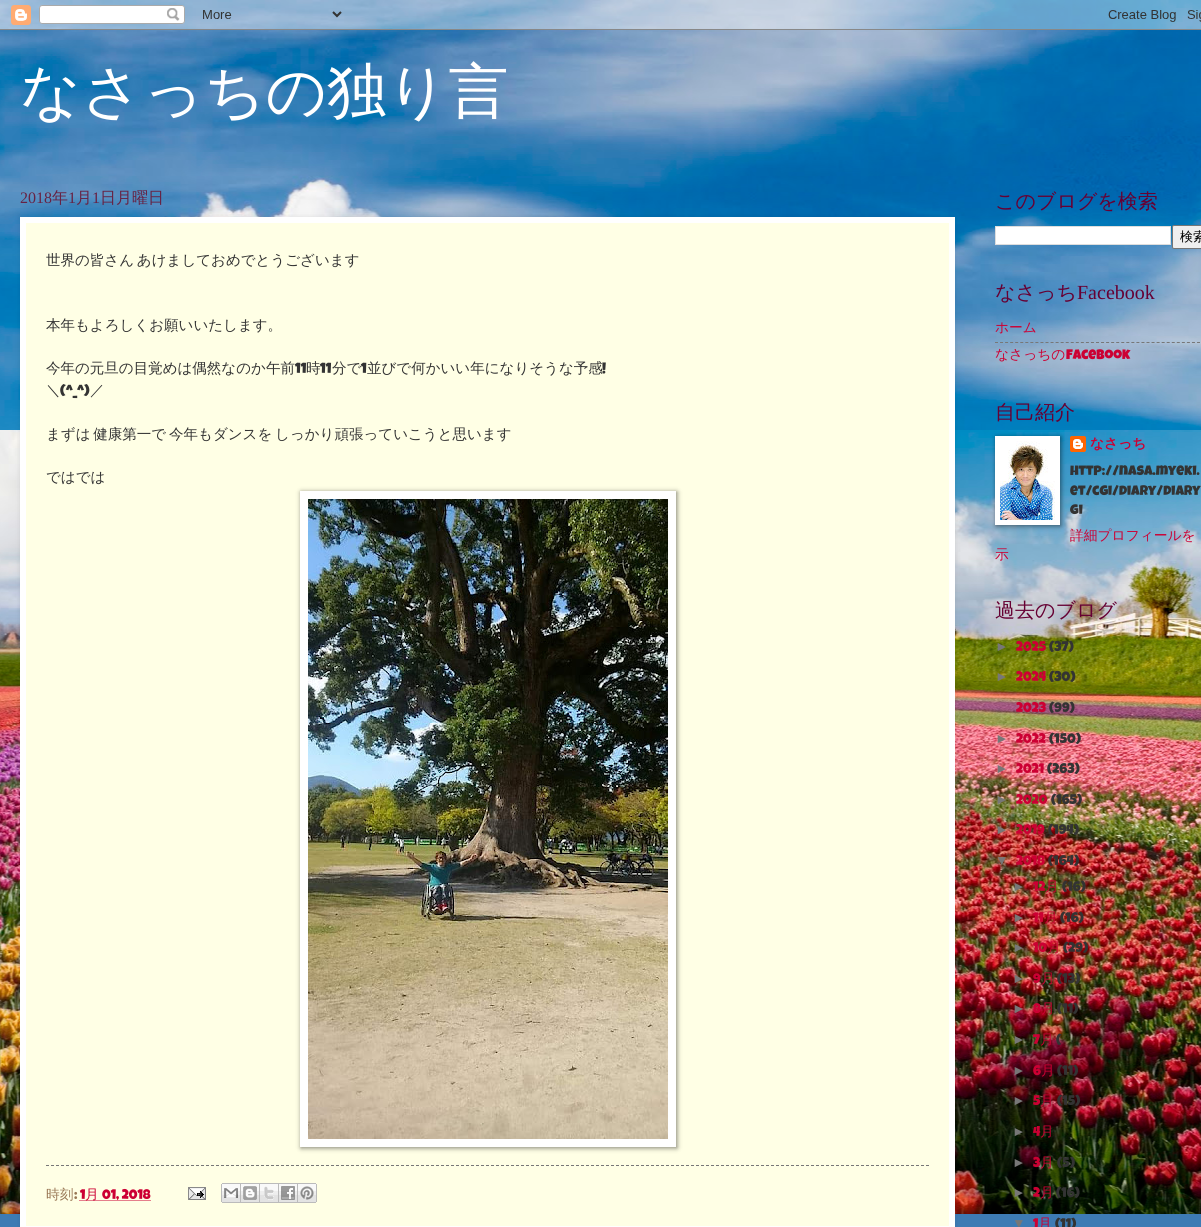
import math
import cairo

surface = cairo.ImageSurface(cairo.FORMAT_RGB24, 1201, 1227)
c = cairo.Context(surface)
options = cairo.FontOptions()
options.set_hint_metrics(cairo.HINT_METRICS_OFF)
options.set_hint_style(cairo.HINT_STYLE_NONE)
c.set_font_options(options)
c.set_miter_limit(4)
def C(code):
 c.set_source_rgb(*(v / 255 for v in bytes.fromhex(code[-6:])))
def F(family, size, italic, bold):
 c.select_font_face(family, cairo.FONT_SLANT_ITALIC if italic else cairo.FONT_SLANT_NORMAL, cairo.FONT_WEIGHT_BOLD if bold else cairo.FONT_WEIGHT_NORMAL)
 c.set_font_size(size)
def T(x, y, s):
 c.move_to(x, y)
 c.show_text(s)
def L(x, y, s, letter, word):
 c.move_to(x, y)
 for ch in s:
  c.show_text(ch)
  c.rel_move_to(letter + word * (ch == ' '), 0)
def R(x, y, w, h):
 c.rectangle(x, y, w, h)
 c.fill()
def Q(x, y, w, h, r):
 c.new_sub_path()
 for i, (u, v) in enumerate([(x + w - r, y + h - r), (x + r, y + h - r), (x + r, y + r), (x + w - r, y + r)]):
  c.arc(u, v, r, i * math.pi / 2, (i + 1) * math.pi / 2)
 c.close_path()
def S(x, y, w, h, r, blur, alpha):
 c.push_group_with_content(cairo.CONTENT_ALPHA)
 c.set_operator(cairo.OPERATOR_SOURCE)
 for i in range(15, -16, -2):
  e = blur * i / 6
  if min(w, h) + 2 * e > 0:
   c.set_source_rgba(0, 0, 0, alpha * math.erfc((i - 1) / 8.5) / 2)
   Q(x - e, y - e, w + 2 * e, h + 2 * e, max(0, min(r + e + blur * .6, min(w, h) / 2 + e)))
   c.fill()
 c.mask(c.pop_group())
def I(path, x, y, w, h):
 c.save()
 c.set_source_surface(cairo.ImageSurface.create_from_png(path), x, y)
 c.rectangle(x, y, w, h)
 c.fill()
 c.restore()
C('3d7bb4')
c.paint()
I('1.png',0,0,1201,1214)
I('2.png',0,0,1201,30)
I('3.png',0,30,1201,400)
F('WenQuanYi Zen Hei Medium',60,0,0)
C('ffffff')
T(20,112,'なさっちの独り言')
F('Liberation Serif',16,0,0)
C('662244')
T(20,203,'2018')
F('WenQuanYi Zen Hei Medium',16,0,0)
T(52,203,'年')
F('Liberation Serif',16,0,0)
T(68,203,'1')
F('WenQuanYi Zen Hei Medium',16,0,0)
T(76,203,'月')
F('Liberation Serif',16,0,0)
T(92,203,'1')
F('WenQuanYi Zen Hei Medium',16,0,0)
T(100,203,'日月曜日')
C('000000')
S(20,217,935,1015,0,2.5,.1)
C('ffffe5')
c.rectangle(23,220,929,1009)
c.fill_preserve()
C('ffffff')
c.set_line_width(6)
c.stroke()
F('WenQuanYi Zen Hei Medium',14.5,0,0)
C('333333')
L(46,265,'世界の皆さん あけましておめでとうございます',0,-1.5)
T(46,330,'本年もよろしくお願いいたします。')
T(46,373,'今年の元旦の目覚めは偶然なのか午前')
F('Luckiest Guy',14.5,0,0)
T(295,373,'11')
F('WenQuanYi Zen Hei Medium',14.5,0,0)
T(306,373,'時')
F('Luckiest Guy',14.5,0,0)
T(320,373,'11')
F('WenQuanYi Zen Hei Medium',14.5,0,0)
T(332,373,'分で')
F('Luckiest Guy',14.5,0,0)
T(361,373,'1')
F('WenQuanYi Zen Hei Medium',14.5,0,0)
T(367,373,'並びで何かいい年になりそうな予感')
F('Luckiest Guy',14.5,0,0)
T(602,373,'!')
F('WenQuanYi Zen Hei Medium',14.5,0,0)
T(46,395,'＼')
F('Luckiest Guy',14.5,0,0)
T(60,395,'(^_^)')
F('WenQuanYi Zen Hei Medium',14.5,0,0)
T(90,395,'／')
L(46,439,'まずは 健康第一で 今年もダンスを しっかり頑張っていこうと思います',0,-1.5)
T(46,482,'ではでは')
C('000000')
S(301,492,376,656,0,2.5,.5)
C('ffffff')
R(300,491,376,656)
I('4.png',308,499,360,640)
c.new_path()
c.move_to(46,1165.5)
c.line_to(929,1165.5)
C('777777')
c.set_line_width(1)
c.set_dash([3,2])
c.stroke()
F('WenQuanYi Zen Hei Medium',13.75,0,0)
C('997755')
T(46,1199,'時刻')
F('Luckiest Guy',13.75,0,0)
T(74,1199,':')
C('cc0033')
T(80,1199,'1')
c.new_path()
c.move_to(79.5,1200.5)
c.line_to(150.5,1200.5)
c.set_dash([1,1])
c.stroke()
F('WenQuanYi Zen Hei Medium',13.75,0,0)
T(85,1199,'月')
F('Luckiest Guy',13.75,0,0)
T(102,1199,'01, 2018')
I('5.png',188,1187,18,13)
I('6.png',221,1183,20,20)
I('7.png',241,1183,19,20)
I('8.png',260,1183,19,20)
I('9.png',279,1183,19,20)
I('10.png',298,1183,19,20)
F('WenQuanYi Zen Hei Medium',20,0,0)
C('660033')
T(995,208,'このブログを検索')
C('ffffff')
c.rectangle(995.5,226.5,175,18)
c.fill_preserve()
C('dddddd')
c.set_dash([])
c.stroke()
C('efefef')
Q(1172.5,225.5,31,23,1.5)
c.fill_preserve()
C('767676')
c.stroke()
F('WenQuanYi Zen Hei Medium',13,0,0)
C('000000')
T(1180,241,'検索')
F('WenQuanYi Zen Hei Medium',20,0,0)
C('660033')
T(995,299,'なさっち')
F('Liberation Serif',20,0,0)
T(1077,299,'Facebook')
F('WenQuanYi Zen Hei Medium',13.75,0,0)
C('cc0033')
T(995,332,'ホーム')
c.new_path()
c.move_to(995,342.5)
c.line_to(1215,342.5)
C('777777')
c.set_dash([3,2.05])
c.stroke()
C('cc0033')
T(995,359,'なさっちの')
F('Luckiest Guy',13.75,0,0)
T(1066,359,'Facebook')
F('WenQuanYi Zen Hei Medium',20,0,0)
C('660033')
T(995,419,'自己紹介')
C('000000')
S(996,437,65,89,0,2.5,.5)
C('ffffff')
R(995,436,65,89)
I('11.png',1000,441,55,79)
I('12.png',1070,436,16,16)
F('WenQuanYi Zen Hei',13.75,0,1)
C('cc0033')
T(1090,448,'なさっち')
F('Luckiest Guy',13.75,0,0)
C('333333')
T(1070,475,'http://nasa.myeki.')
T(1070,495,'et/cgi/diary/diary')
T(1070,514,'gi')
F('WenQuanYi Zen Hei Medium',13.75,0,0)
C('cc0033')
T(1070,540,'詳細プロフィールを')
T(995,559,'示')
F('WenQuanYi Zen Hei Medium',20,0,0)
C('660033')
T(995,617,'過去のブログ')
F('Liberation Sans',13.75,0,0)
C('777777')
T(995,651,'►')
F('Luckiest Guy',13.75,0,0)
C('cc0033')
T(1016,651,'2025')
C('333333')
T(1049,651,'(37)')
F('Liberation Sans',13.75,0,0)
C('777777')
T(995,681,'►')
F('Luckiest Guy',13.75,0,0)
C('cc0033')
T(1016,681,'2024')
C('333333')
T(1049,681,'(30)')
C('cc0033')
T(1016,712,'2023')
C('333333')
T(1049,712,'(99)')
F('Liberation Sans',13.75,0,0)
C('777777')
T(995,743,'►')
F('Luckiest Guy',13.75,0,0)
C('cc0033')
T(1016,743,'2022')
C('333333')
T(1049,743,'(150)')
F('Liberation Sans',13.75,0,0)
C('777777')
T(995,773,'►')
F('Luckiest Guy',13.75,0,0)
C('cc0033')
T(1016,773,'2021')
C('333333')
T(1047,773,'(263)')
F('Liberation Sans',13.75,0,0)
C('777777')
T(995,804,'►')
F('Luckiest Guy',13.75,0,0)
C('cc0033')
T(1016,804,'2020')
C('333333')
T(1051,804,'(165)')
F('Liberation Sans',13.75,0,0)
C('777777')
T(995,834,'►')
F('Luckiest Guy',13.75,0,0)
C('cc0033')
T(1016,834,'2019')
C('333333')
T(1048,834,'(194)')
F('Liberation Sans',13.75,0,0)
C('777777')
T(995,865,'▼')
F('Luckiest Guy',13.75,0,0)
C('cc0033')
T(1016,865,'2018')
C('333333')
T(1048,865,'(164)')
F('Liberation Sans',13.75,0,0)
C('777777')
T(1012,891,'►')
F('Luckiest Guy',13.75,0,0)
C('cc0033')
T(1033,891,'12')
F('WenQuanYi Zen Hei Medium',13.75,0,0)
T(1045,891,'月')
F('Luckiest Guy',13.75,0,0)
C('333333')
T(1062,891,'(16)')
F('Liberation Sans',13.75,0,0)
C('777777')
T(1012,922,'►')
F('Luckiest Guy',13.75,0,0)
C('cc0033')
T(1033,922,'11')
F('WenQuanYi Zen Hei Medium',13.75,0,0)
T(1044,922,'月')
F('Luckiest Guy',13.75,0,0)
C('333333')
T(1060,922,'(16)')
F('Liberation Sans',13.75,0,0)
C('777777')
T(1012,952,'►')
F('Luckiest Guy',13.75,0,0)
C('cc0033')
T(1033,952,'10')
F('WenQuanYi Zen Hei Medium',13.75,0,0)
T(1047,952,'月')
F('Luckiest Guy',13.75,0,0)
C('333333')
T(1063,952,'(29)')
F('Liberation Sans',13.75,0,0)
C('777777')
T(1012,983,'►')
F('Luckiest Guy',13.75,0,0)
C('cc0033')
T(1033,983,'9')
F('WenQuanYi Zen Hei Medium',13.75,0,0)
T(1041,983,'月')
F('Luckiest Guy',13.75,0,0)
C('333333')
T(1057,983,'(13)')
F('Liberation Sans',13.75,0,0)
C('777777')
T(1012,1013,'►')
F('Luckiest Guy',13.75,0,0)
C('cc0033')
T(1033,1013,'8')
F('WenQuanYi Zen Hei Medium',13.75,0,0)
T(1041,1013,'月')
F('Luckiest Guy',13.75,0,0)
C('333333')
T(1057,1013,'(11)')
F('Liberation Sans',13.75,0,0)
C('777777')
T(1012,1044,'►')
F('Luckiest Guy',13.75,0,0)
C('cc0033')
T(1033,1044,'7')
F('WenQuanYi Zen Hei Medium',13.75,0,0)
T(1040,1044,'月')
F('Luckiest Guy',13.75,0,0)
C('333333')
T(1056,1044,'(')
F('Liberation Sans',13.75,0,0)
C('777777')
T(1012,1075,'►')
F('Luckiest Guy',13.75,0,0)
C('cc0033')
T(1033,1075,'6')
F('WenQuanYi Zen Hei Medium',13.75,0,0)
T(1041,1075,'月')
F('Luckiest Guy',13.75,0,0)
C('333333')
T(1057,1075,'(11)')
F('Liberation Sans',13.75,0,0)
C('777777')
T(1012,1105,'►')
F('Luckiest Guy',13.75,0,0)
C('cc0033')
T(1033,1105,'5')
F('WenQuanYi Zen Hei Medium',13.75,0,0)
T(1040,1105,'月')
F('Luckiest Guy',13.75,0,0)
C('333333')
T(1057,1105,'(15)')
F('Liberation Sans',13.75,0,0)
C('777777')
T(1012,1136,'►')
F('Luckiest Guy',13.75,0,0)
C('cc0033')
T(1033,1136,'4')
F('WenQuanYi Zen Hei Medium',13.75,0,0)
T(1040,1136,'月')
F('Liberation Sans',13.75,0,0)
C('777777')
T(1012,1167,'►')
F('Luckiest Guy',13.75,0,0)
C('cc0033')
T(1033,1167,'3')
F('WenQuanYi Zen Hei Medium',13.75,0,0)
T(1040,1167,'月')
F('Luckiest Guy',13.75,0,0)
C('333333')
T(1057,1167,'(5)')
F('Liberation Sans',13.75,0,0)
C('777777')
T(1012,1197,'►')
F('Luckiest Guy',13.75,0,0)
C('cc0033')
T(1033,1197,'2')
F('WenQuanYi Zen Hei Medium',13.75,0,0)
T(1040,1197,'月')
F('Luckiest Guy',13.75,0,0)
C('333333')
T(1056,1197,'(16)')
F('Liberation Sans',13.75,0,0)
C('777777')
T(1012,1228,'▼')
F('Luckiest Guy',13.75,0,0)
C('cc0033')
T(1033,1228,'1')
F('WenQuanYi Zen Hei Medium',13.75,0,0)
T(1038,1228,'月')
F('Luckiest Guy',13.75,0,0)
C('333333')
T(1055,1228,'(11)')
surface.write_to_png('o.png')
